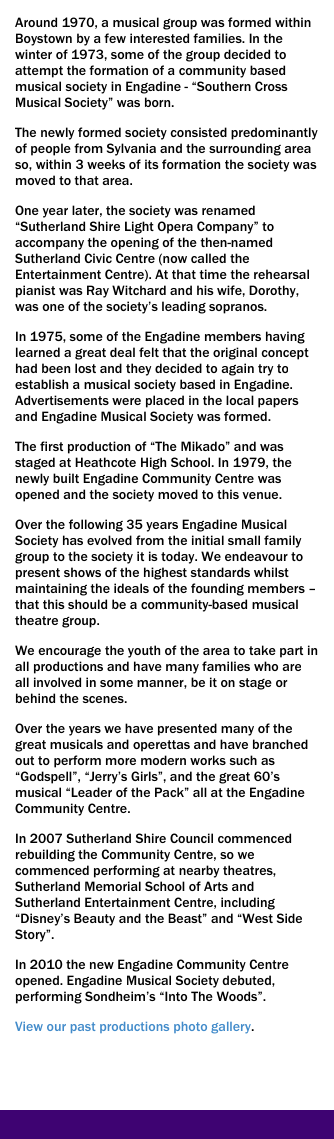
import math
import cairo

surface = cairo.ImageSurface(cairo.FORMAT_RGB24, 334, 1139)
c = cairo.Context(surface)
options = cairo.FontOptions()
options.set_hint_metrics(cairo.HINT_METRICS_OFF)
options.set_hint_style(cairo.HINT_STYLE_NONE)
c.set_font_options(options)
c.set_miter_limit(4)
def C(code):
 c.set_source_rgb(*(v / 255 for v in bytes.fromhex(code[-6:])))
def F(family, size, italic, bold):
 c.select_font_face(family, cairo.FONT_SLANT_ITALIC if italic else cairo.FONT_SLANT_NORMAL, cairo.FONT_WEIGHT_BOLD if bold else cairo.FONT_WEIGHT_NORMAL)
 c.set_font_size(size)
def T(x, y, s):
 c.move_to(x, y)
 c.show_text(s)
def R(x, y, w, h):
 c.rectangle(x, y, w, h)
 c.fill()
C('ffffff')
c.paint()
F('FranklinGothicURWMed',14,0,0)
C('000000')
T(15,27,'Around 1970, a musical group was formed within')
T(15,43,'Boystown by a few interested families. In the')
T(15,59,'winter of 1973, some of the group decided to')
T(15,75,'attempt the formation of a community based')
T(15,91,'musical society in Engadine - “Southern Cross')
T(15,107,'Musical Society” was born.')
T(15,137,'The newly formed society consisted predominantly')
T(15,153,'of people from Sylvania and the surrounding area')
T(15,169,'so, within 3 weeks of its formation the society was')
T(15,185,'moved to that area.')
T(15,215,'One year later, the society was renamed')
T(15,231,'“Sutherland Shire Light Opera Company” to')
T(15,247,'accompany the opening of the then-named')
T(15,263,'Sutherland Civic Centre (now called the')
T(15,279,'Entertainment Centre). At that time the rehearsal')
T(15,295,'pianist was Ray Witchard and his wife, Dorothy,')
T(15,311,'was one of the society’s leading sopranos.')
T(15,341,'In 1975, some of the Engadine members having')
T(15,357,'learned a great deal felt that the original concept')
T(15,373,'had been lost and they decided to again try to')
T(15,389,'establish a musical society based in Engadine.')
T(15,405,'Advertisements were placed in the local papers')
T(15,421,'and Engadine Musical Society was formed.')
T(15,451,'The first production of “The Mikado” and was')
T(15,467,'staged at Heathcote High School. In 1979, the')
T(15,483,'newly built Engadine Community Centre was')
T(15,499,'opened and the society moved to this venue.')
T(15,529,'Over the following 35 years Engadine Musical')
T(15,545,'Society has evolved from the initial small family')
T(15,561,'group to the society it is today. We endeavour to')
T(15,577,'present shows of the highest standards whilst')
T(15,593,'maintaining the ideals of the founding members –')
T(15,609,'that this should be a community-based musical')
T(15,625,'theatre group.')
T(15,655,'We encourage the youth of the area to take part in')
T(15,671,'all productions and have many families who are')
T(15,687,'all involved in some manner, be it on stage or')
T(15,703,'behind the scenes.')
T(15,733,'Over the years we have presented many of the')
T(15,749,'great musicals and operettas and have branched')
T(15,765,'out to perform more modern works such as')
T(15,781,'“Godspell”, “Jerry’s Girls”, and the great 60’s')
T(15,797,'musical “Leader of the Pack” all at the Engadine')
T(15,813,'Community Centre.')
T(15,843,'In 2007 Sutherland Shire Council commenced')
T(15,859,'rebuilding the Community Centre, so we')
T(15,875,'commenced performing at nearby theatres,')
T(15,891,'Sutherland Memorial School of Arts and')
T(15,907,'Sutherland Entertainment Centre, including')
T(15,923,'“Disney’s Beauty and the Beast” and “West Side')
T(15,939,'Story”.')
T(15,969,'In 2010 the new Engadine Community Centre')
T(15,985,'opened. Engadine Musical Society debuted,')
T(15,1001,'performing Sondheim’s “Into The Woods”.')
C('428bca')
T(15,1031,'View our past productions photo gallery')
C('000000')
T(251,1031,'.')
C('3e0372')
R(0,1110,334,29)
surface.write_to_png('o.png')
